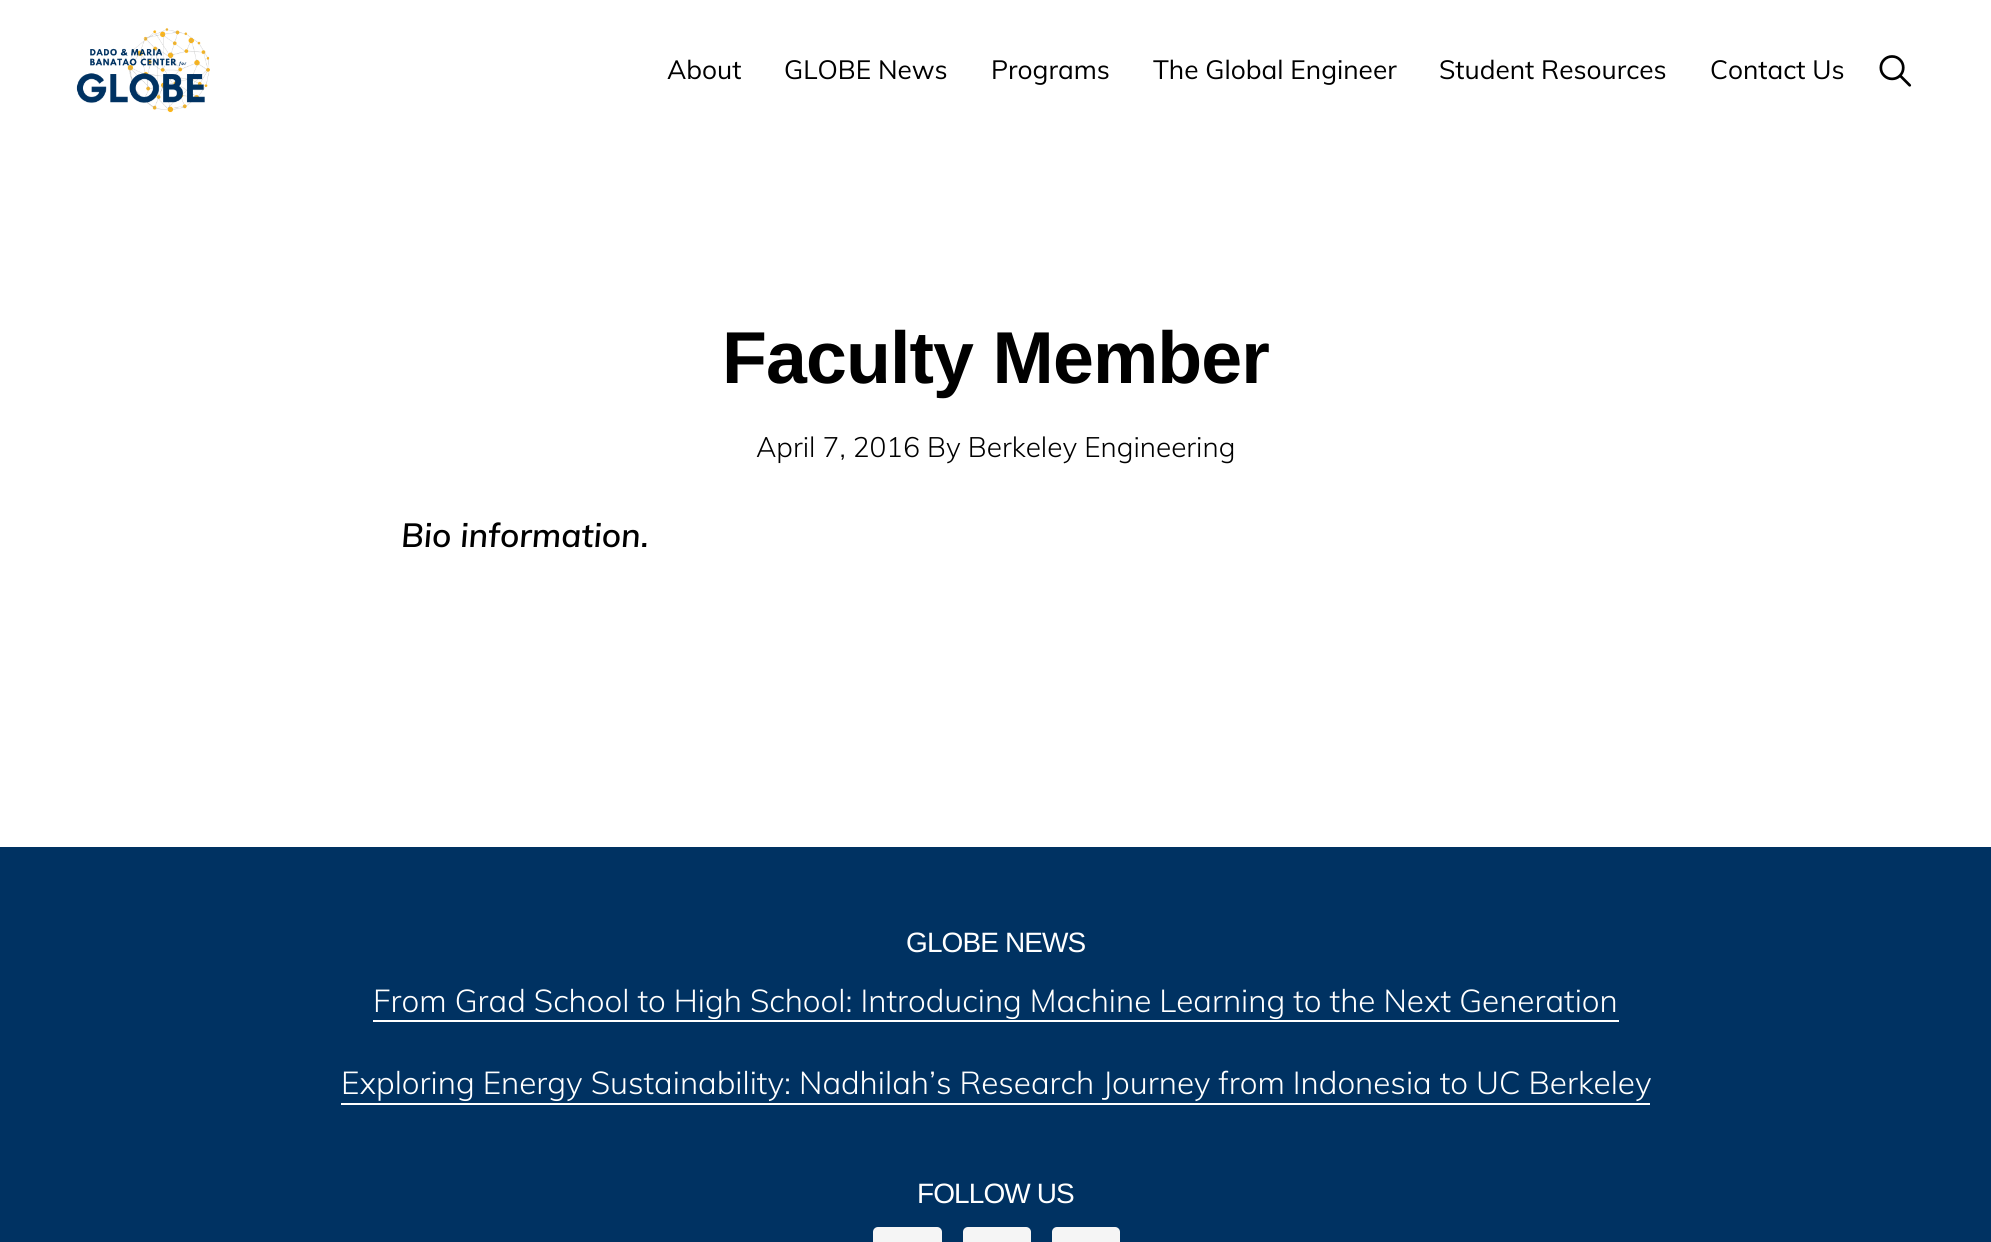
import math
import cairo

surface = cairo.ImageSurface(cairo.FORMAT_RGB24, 1991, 1242)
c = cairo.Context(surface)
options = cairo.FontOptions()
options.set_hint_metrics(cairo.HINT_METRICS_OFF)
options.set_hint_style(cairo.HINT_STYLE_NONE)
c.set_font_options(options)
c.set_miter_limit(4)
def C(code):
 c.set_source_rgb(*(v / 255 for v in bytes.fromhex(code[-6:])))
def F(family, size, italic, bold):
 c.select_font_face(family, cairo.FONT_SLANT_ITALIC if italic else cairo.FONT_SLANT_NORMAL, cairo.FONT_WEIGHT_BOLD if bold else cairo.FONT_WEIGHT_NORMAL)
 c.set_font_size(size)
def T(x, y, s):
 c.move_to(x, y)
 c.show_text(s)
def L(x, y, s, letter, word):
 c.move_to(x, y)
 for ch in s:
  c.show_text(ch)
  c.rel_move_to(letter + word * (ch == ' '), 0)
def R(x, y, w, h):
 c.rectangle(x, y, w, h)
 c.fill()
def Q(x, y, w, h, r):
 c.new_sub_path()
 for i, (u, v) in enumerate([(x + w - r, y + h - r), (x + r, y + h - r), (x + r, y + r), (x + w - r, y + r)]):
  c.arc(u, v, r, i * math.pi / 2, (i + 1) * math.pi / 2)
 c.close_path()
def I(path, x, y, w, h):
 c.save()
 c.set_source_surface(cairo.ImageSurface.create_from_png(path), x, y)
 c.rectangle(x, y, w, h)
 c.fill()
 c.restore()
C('ffffff')
c.paint()
I('1.png',76,28,134,85)
F('Muli',26.25,0,0)
C('000000')
T(667,79,'About')
T(784,79,'GLOBE News')
T(991,79,'Programs')
T(1153,79,'The Global Engineer')
T(1439,79,'Student Resources')
T(1710,79,'Contact Us')
I('2.png',1879,55,33,32)
F('Liberation Sans',73.5,0,1)
L(722,383,'Faculty Member',-.9,0)
F('Muli Light',28,0,0)
T(756,457,'April 7, 2016 By Berkeley Engineering')
F('Muli SemiBold',33.25,1,0)
T(401,547,'Bio information.')
C('003262')
R(0,847,1991,395)
F('Liberation Sans',28,0,0)
C('ffffff')
L(906,952,'GLOBE NEWS',-.9,0)
F('Muli Light',31.5,0,0)
T(373,1012,'From Grad School to High School: Introducing Machine Learning to the Next Generation')
R(373,1020,1246,2)
T(341,1094,'Exploring Energy Sustainability: Nadhilah’s Research Journey from Indonesia to UC Berkeley')
R(341,1103,1309,2)
F('Liberation Sans',28,0,0)
L(917,1203,'FOLLOW US',-.9,0)
C('f5f5f5')
Q(873,1227,69,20,5)
c.fill()
Q(963,1227,68,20,5)
c.fill()
Q(1052,1227,68,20,5)
c.fill()
surface.write_to_png('o.png')
